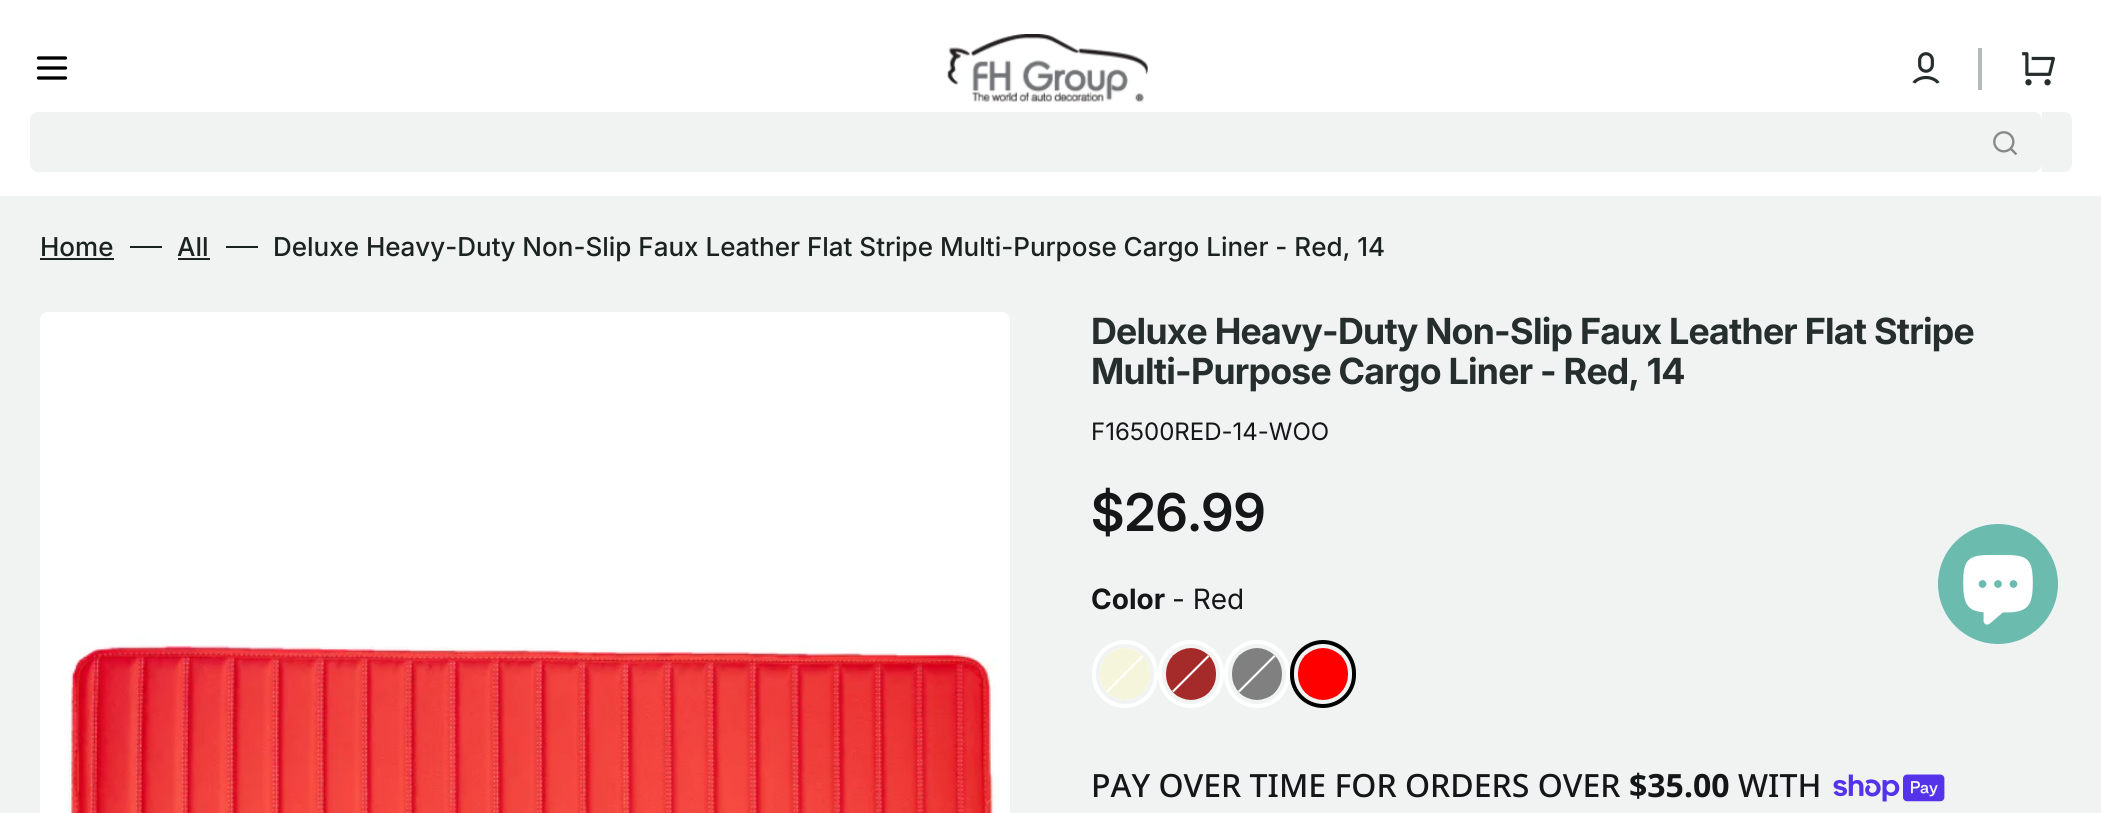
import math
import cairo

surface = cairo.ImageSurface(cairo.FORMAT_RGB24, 2101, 813)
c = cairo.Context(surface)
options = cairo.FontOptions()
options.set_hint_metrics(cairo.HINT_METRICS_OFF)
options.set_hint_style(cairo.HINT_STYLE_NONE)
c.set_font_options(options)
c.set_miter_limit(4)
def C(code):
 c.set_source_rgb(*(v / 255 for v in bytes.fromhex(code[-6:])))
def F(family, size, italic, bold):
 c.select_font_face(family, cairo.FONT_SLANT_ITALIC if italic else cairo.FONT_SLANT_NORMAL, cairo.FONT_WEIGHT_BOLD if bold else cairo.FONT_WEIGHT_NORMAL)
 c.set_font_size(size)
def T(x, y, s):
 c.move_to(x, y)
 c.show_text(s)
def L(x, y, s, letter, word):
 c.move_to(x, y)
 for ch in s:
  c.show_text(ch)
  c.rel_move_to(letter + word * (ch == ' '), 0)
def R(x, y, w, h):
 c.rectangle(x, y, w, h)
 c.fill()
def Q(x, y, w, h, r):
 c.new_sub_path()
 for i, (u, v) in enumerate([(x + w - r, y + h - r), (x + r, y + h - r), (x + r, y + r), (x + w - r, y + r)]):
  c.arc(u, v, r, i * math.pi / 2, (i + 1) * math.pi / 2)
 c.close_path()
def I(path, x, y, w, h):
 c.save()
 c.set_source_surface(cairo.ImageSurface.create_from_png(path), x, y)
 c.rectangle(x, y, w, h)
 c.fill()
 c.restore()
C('f1f3f3')
c.paint()
C('ffffff')
R(0,0,2101,196)
c.new_path()
c.move_to(38.5,78)
c.line_to(65.5,78)
c.move_to(38.5,68)
c.line_to(65.5,68)
c.move_to(38.5,58)
c.line_to(65.5,58)
C('000000')
c.set_line_width(3.3)
c.set_line_cap(cairo.LINE_CAP_ROUND)
c.stroke()
I('1.png',947,34,201,68)
I('2.png',1912,52,28,32)
C('b5bcbb')
R(1978,48,4,42)
I('3.png',2022,52,33,34)
C('f1f3f3')
Q(30,112,2042,60,8)
c.fill()
C('ffffff')
R(30,112,2012,60)
C('f1f3f3')
Q(30,112,2012,60,8)
c.fill()
I('4.png',1993,131,25,25)
F('Inter Medium',26,0,0)
C('1b2321')
T(40,256,'Home')
R(40,258,74,2)
R(130,246,32,2)
T(177,256,'All')
R(178,258,32,2)
R(226,246,32,2)
T(273,256,'Deluxe Heavy-Duty Non-Slip Faux Leather Flat Stripe Multi-Purpose Cargo Liner - Red, 14')
I('5.png',40,312,970,501)
F('Inter',36,0,1)
C('262e2d')
L(1091,344,'Deluxe Heavy-Duty Non-Slip Faux Leather Flat Stripe',-.72,0)
L(1091,384,'Multi-Purpose Cargo Liner - Red, 14',-.72,0)
F('Inter',24,0,0)
C('131717')
T(1091,440,'F16500RED-14-WOO')
F('Inter SemiBold',52,0,0)
T(1091,531,'$26.99')
F('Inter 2',28,0,1)
T(1091,609,'Color')
F('Inter',28,0,0)
T(1172,609,'- Red')
Q(1094,642,62,64,31)
C('ffffff')
c.set_line_width(4)
c.set_line_cap(cairo.LINE_CAP_BUTT)
c.stroke()
Q(1100,648,50,52,25)
c.fill()
I('6.png',1100,648,50,52)
c.new_path()
c.move_to(1142,655)
c.line_to(1143.5,656.5)
c.line_to(1107.5,692.5)
c.line_to(1106,691)
c.close_path()
c.fill()
Q(1160,642,62,64,31)
c.stroke()
Q(1166,648,50,52,25)
c.fill()
I('7.png',1166,648,50,52)
c.new_path()
c.move_to(1208,655)
c.line_to(1209.5,656.5)
c.line_to(1173.5,692.5)
c.line_to(1172,691)
c.close_path()
c.fill()
Q(1226,642,62,64,31)
c.stroke()
Q(1232,648,50,52,25)
c.fill()
I('8.png',1232,648,50,52)
c.new_path()
c.move_to(1274,655)
c.line_to(1275.5,656.5)
c.line_to(1239.5,692.5)
c.line_to(1238,691)
c.close_path()
c.fill()
Q(1292,642,62,64,31)
C('000000')
c.stroke()
C('ffffff')
Q(1298,648,50,52,25)
c.fill()
I('9.png',1298,648,50,52)
F('Noto Sans Medium',32,0,0)
C('131717')
T(1091,797,'PAY OVER TIME FOR ORDERS OVER')
F('Noto Sans',32,0,1)
T(1629,797,'$35.00')
F('Noto Sans Medium',32,0,0)
T(1738,797,'WITH')
I('10.png',1833,774,112,28)
C('6bbbae')
c.arc(1998,584,60,0,2 * math.pi)
c.fill()
I('11.png',1963,555,70,70)
surface.write_to_png('o.png')
